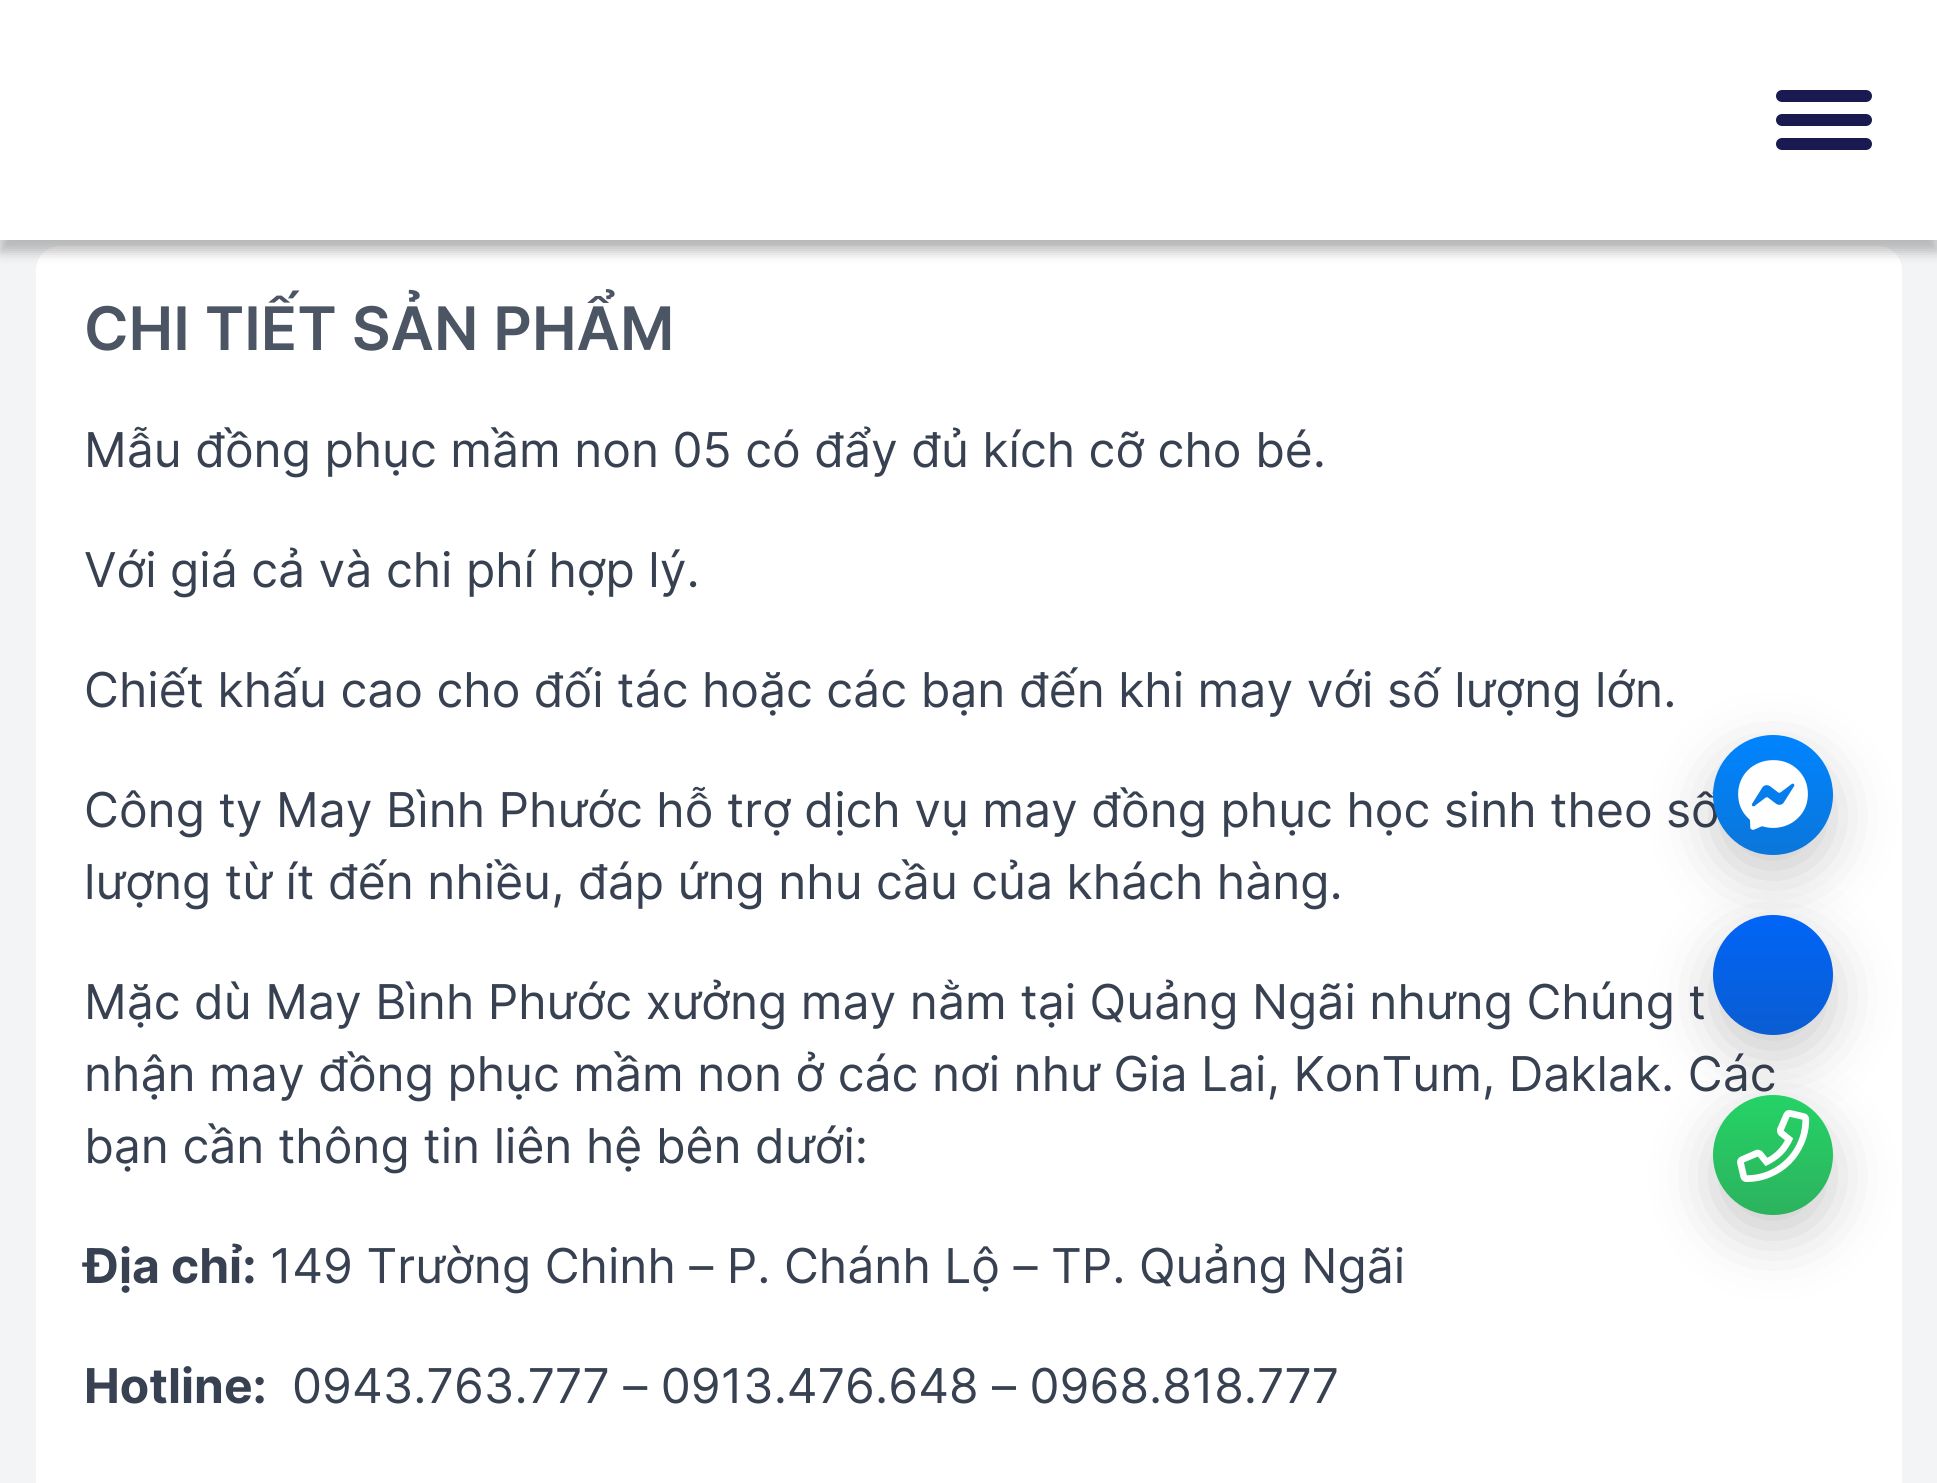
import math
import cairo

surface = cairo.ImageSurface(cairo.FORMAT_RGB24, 1937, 1483)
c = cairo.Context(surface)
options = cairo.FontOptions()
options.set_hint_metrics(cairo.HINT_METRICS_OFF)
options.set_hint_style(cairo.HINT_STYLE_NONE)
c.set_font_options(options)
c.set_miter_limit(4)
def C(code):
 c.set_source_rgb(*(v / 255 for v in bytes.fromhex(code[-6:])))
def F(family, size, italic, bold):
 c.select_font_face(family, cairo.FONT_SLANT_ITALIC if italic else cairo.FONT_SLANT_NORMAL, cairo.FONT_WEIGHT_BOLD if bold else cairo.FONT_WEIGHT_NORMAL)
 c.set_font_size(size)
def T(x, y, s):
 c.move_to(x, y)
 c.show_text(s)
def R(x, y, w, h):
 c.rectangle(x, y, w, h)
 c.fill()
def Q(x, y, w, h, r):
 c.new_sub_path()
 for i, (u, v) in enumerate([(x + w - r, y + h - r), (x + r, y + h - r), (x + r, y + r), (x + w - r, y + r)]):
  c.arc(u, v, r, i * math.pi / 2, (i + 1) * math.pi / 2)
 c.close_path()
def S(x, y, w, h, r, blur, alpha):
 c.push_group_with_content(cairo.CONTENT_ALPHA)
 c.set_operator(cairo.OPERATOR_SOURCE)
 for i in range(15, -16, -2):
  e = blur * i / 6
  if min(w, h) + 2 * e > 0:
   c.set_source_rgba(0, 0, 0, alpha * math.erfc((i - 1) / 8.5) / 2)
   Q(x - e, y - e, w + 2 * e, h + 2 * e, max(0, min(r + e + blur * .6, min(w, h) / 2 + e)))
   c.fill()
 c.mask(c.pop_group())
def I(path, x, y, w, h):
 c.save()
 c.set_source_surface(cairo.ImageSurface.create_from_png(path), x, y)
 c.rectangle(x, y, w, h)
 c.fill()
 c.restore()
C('f3f4f6')
c.paint()
C('ffffff')
Q(36,246,1866,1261,24)
c.fill()
C('000000')
S(0,12,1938,240,0,6,.25)
C('ffffff')
R(0,0,1937,240)
C('191b50')
Q(1776,90,96,12,6)
c.fill()
Q(1776,114,96,12,6)
c.fill()
Q(1776,138,96,12,6)
c.fill()
F('Inter SemiBold',60,0,0)
C('4b5563')
T(84,350,'CHI TIẾT SẢN PHẨM')
F('Inter',48,0,0)
C('374151')
T(84,467,'Mẫu đồng phục mầm non 05 có đẩy đủ kích cỡ cho bé.')
T(84,587,'Với giá cả và chi phí hợp lý.')
T(84,707,'Chiết khấu cao cho đối tác hoặc các bạn đến khi may với số lượng lớn.')
T(84,827,'Công ty May Bình Phước hỗ trợ dịch vụ may đồng phục học sinh theo số')
T(84,899,'lượng từ ít đến nhiều, đáp ứng nhu cầu của khách hàng.')
T(84,1019,'Mặc dù May Bình Phước xưởng may nằm tại Quảng Ngãi nhưng Chúng t')
T(84,1091,'nhận may đồng phục mầm non ở các nơi như Gia Lai, KonTum, Daklak. Các')
T(84,1163,'bạn cần thông tin liên hệ bên dưới:')
F('Inter',48,0,1)
T(84,1283,'Địa chỉ:')
F('Inter',48,0,0)
T(270,1283,'149 Trường Chinh – P. Chánh Lộ – TP. Quảng Ngãi')
F('Inter',48,0,1)
T(84,1403,'Hotline:')
F('Inter',48,0,0)
T(292,1403,'0943.763.777 – 0913.476.648 – 0968.818.777')
C('000000')
S(1713,756,120,120,60,30,.2)
gradient = cairo.LinearGradient(1773,735,1773,855)
gradient.add_color_stop_rgba(0,0,0.518,1,1)
gradient.add_color_stop_rgba(1,0.043,0.463,0.855,1)
c.set_source(gradient)
c.arc(1773,795,60,0,2 * math.pi)
c.fill()
I('1.png',1738,760,70,70)
C('000000')
S(1713,936,120,120,60,30,.2)
gradient = cairo.LinearGradient(1773,915,1773,1035)
gradient.add_color_stop_rgba(0,0,0.396,0.969,1)
gradient.add_color_stop_rgba(1,0.043,0.365,0.824,1)
c.set_source(gradient)
c.arc(1773,975,60,0,2 * math.pi)
c.fill()
C('000000')
S(1713,1116,120,120,60,30,.2)
gradient = cairo.LinearGradient(1773,1095,1773,1215)
gradient.add_color_stop_rgba(0,0.145,0.827,0.4,1)
gradient.add_color_stop_rgba(1,0.173,0.698,0.369,1)
c.set_source(gradient)
c.arc(1773,1155,60,0,2 * math.pi)
c.fill()
I('2.png',1737,1109,73,73)
surface.write_to_png('o.png')
